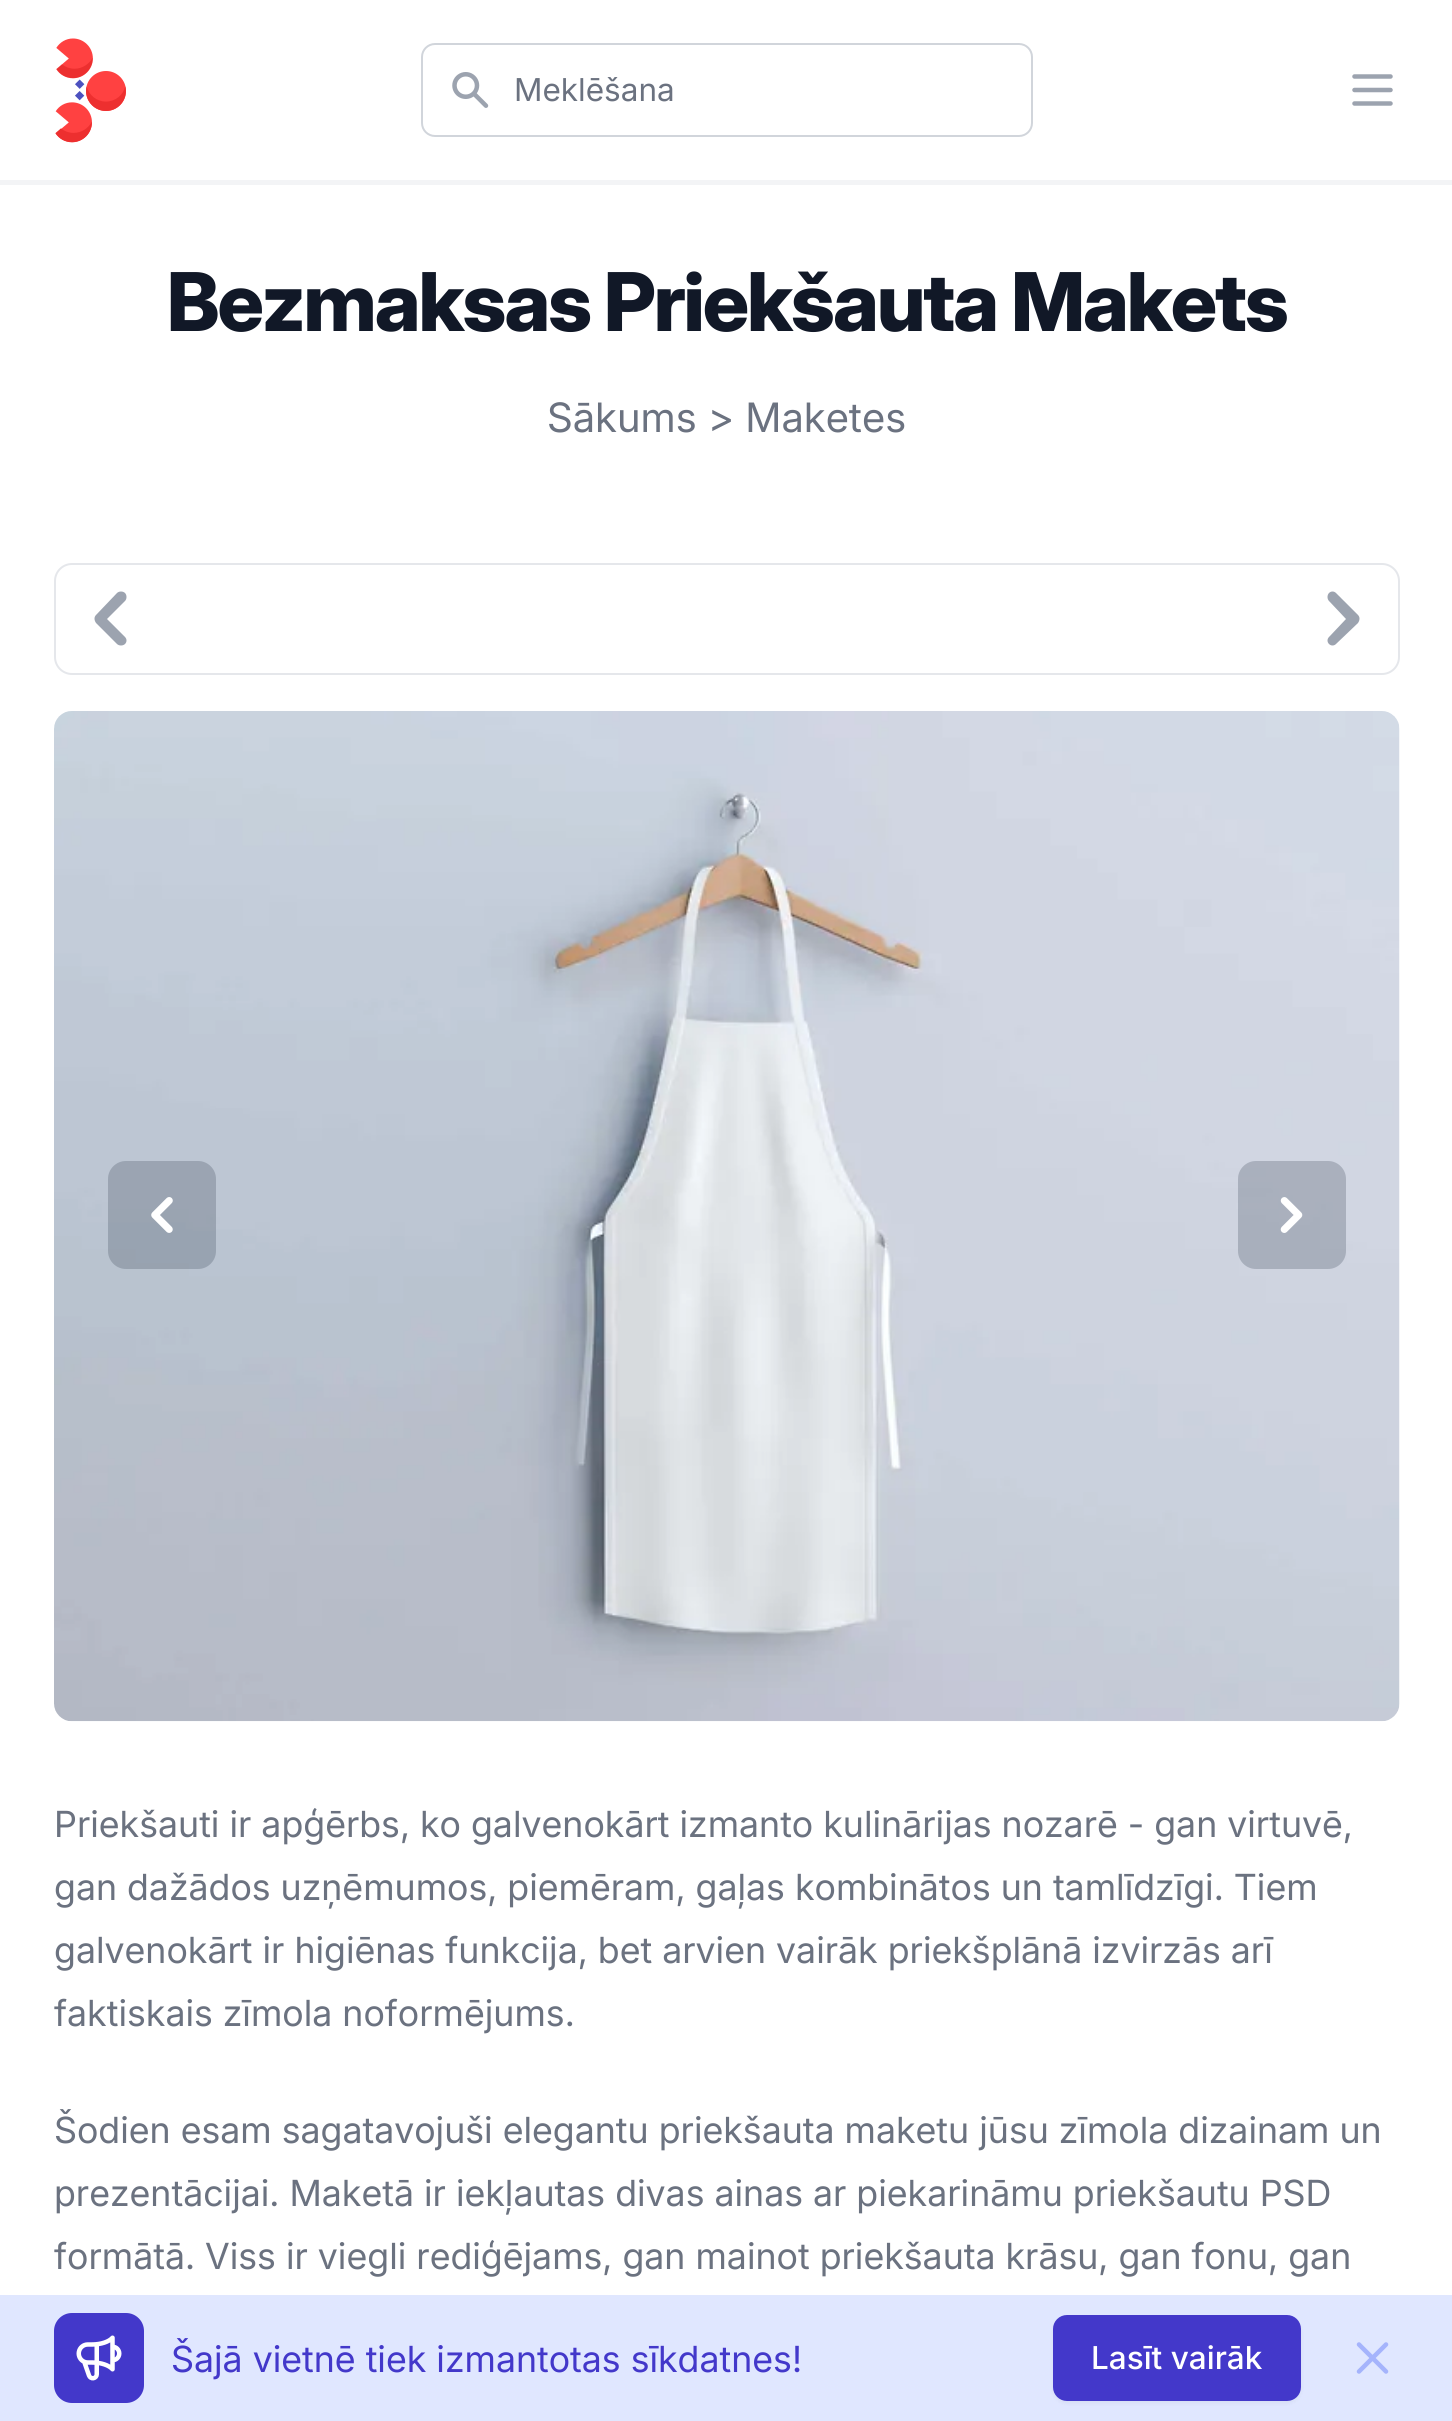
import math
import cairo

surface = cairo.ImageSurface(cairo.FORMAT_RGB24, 1452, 2421)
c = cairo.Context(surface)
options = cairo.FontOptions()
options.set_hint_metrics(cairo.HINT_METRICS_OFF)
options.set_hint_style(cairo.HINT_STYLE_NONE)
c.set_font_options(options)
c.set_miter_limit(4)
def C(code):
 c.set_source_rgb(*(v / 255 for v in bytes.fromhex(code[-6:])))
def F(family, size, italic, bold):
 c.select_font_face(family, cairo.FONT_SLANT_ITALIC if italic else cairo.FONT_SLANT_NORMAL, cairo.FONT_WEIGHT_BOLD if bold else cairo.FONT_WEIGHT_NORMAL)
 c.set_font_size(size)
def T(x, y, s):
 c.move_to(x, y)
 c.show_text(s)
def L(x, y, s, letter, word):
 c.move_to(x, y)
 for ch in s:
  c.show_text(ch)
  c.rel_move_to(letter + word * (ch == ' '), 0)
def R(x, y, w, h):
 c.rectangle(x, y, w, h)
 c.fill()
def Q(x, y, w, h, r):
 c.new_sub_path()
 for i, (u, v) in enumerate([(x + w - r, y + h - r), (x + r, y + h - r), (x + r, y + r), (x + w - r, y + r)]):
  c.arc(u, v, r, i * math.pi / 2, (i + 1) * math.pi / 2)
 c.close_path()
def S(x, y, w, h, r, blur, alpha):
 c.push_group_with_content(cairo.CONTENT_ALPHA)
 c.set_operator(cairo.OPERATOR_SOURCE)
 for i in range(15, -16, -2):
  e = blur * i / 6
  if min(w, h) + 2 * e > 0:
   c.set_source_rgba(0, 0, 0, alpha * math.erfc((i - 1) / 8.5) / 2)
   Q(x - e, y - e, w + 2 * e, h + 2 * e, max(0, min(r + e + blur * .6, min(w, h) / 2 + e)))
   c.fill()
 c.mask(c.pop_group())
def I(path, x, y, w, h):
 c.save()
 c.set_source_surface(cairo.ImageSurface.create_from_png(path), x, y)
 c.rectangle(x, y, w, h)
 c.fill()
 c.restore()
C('ffffff')
c.paint()
C('f3f4f6')
R(0,180,1452,5)
I('1.png',55,38,71,105)
Q(422,44,610,92,13)
C('d1d5db')
c.stroke()
I('2.png',452,72,37,36)
F('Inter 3',31.5,0,0)
C('6b7280')
T(514,101,'Meklēšana')
c.new_path()
c.move_to(1354.5,76.5)
c.line_to(1390.5,76.5)
c.move_to(1354.5,90)
c.line_to(1390.5,90)
c.move_to(1354.5,103.5)
c.line_to(1390.5,103.5)
C('9ca3af')
c.set_line_width(4.5)
c.set_line_cap(cairo.LINE_CAP_ROUND)
c.set_line_join(cairo.LINE_JOIN_ROUND)
c.stroke()
F('Inter ExtraBold',81,0,0)
C('111827')
L(167,331,'Bezmaksas Priekšauta Makets',-2,0)
F('Inter',40.5,0,0)
C('6b7280')
T(547,432,'Sākums > Maketes')
Q(55,564,1344,110,17)
C('e5e7eb')
c.set_line_width(2)
c.set_line_cap(cairo.LINE_CAP_BUTT)
c.set_line_join(cairo.LINE_JOIN_MITER)
c.stroke()
C('9ca3af')
c.new_path()
c.move_to(125,593)
c.curve_to(127,595,127,599,125,601)
c.line_to(107,619)
c.line_to(125,637)
c.curve_to(127,639,127,642,125,644)
c.curve_to(123,646,119,646,117,644)
c.line_to(96,623)
c.curve_to(94,620,94,617,96,615)
c.line_to(117,593)
c.curve_to(119,591,123,591,125,593)
c.close_path()
c.fill()
c.new_path()
c.move_to(1329,644)
c.curve_to(1327,642,1327,639,1329,637)
c.line_to(1346,619)
c.line_to(1329,601)
c.curve_to(1327,599,1327,595,1329,593)
c.curve_to(1331,591,1334,591,1336,593)
c.line_to(1358,615)
c.curve_to(1360,617,1360,620,1358,623)
c.line_to(1336,644)
c.curve_to(1334,646,1331,646,1329,644)
c.close_path()
c.fill()
I('3.png',54,711,1346,1011)
c.set_source_rgba(0.216,0.255,0.318,0.25)
Q(108,1161,108,108,18)
c.fill()
I('4.png',151,1197,22,36)
Q(1238,1161,108,108,18)
c.fill()
I('5.png',1280,1197,23,36)
F('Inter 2',36,0,0)
C('6b7280')
T(54,1837,'Priekšauti ir apģērbs, ko galvenokārt izmanto kulinārijas nozarē - gan virtuvē,')
T(54,1900,'gan dažādos uzņēmumos, piemēram, gaļas kombinātos un tamlīdzīgi. Tiem')
T(54,1963,'galvenokārt ir higiēnas funkcija, bet arvien vairāk priekšplānā izvirzās arī')
T(54,2026,'faktiskais zīmola noformējums.')
T(54,2143,'Šodien esam sagatavojuši elegantu priekšauta maketu jūsu zīmola dizainam un')
T(54,2206,'prezentācijai. Maketā ir iekļautas divas ainas ar piekarināmu priekšautu PSD')
T(54,2269,'formātā. Viss ir viegli rediģējams, gan mainot priekšauta krāsu, gan fonu, gan')
C('e0e7ff')
R(0,2295,1452,126)
C('4338ca')
Q(54,2313,90,90,18)
c.fill()
I('6.png',76,2335,46,46)
T(171,2372,'Šajā vietnē tiek izmantotas sīkdatnes!')
C('000000')
S(1053,2318,248,85,14,2,.05)
C('4338ca')
Q(1053,2315,248,86,14)
c.fill()
F('Inter Medium',31.5,0,0)
C('ffffff')
T(1091,2369,'Lasīt vairāk')
c.new_path()
c.move_to(1359,2371.5)
c.line_to(1386,2344.5)
c.move_to(1359,2344.5)
c.line_to(1386,2371.5)
C('a5b4fc')
c.set_line_width(4.5)
c.set_line_cap(cairo.LINE_CAP_ROUND)
c.set_line_join(cairo.LINE_JOIN_ROUND)
c.stroke()
surface.write_to_png('o.png')
